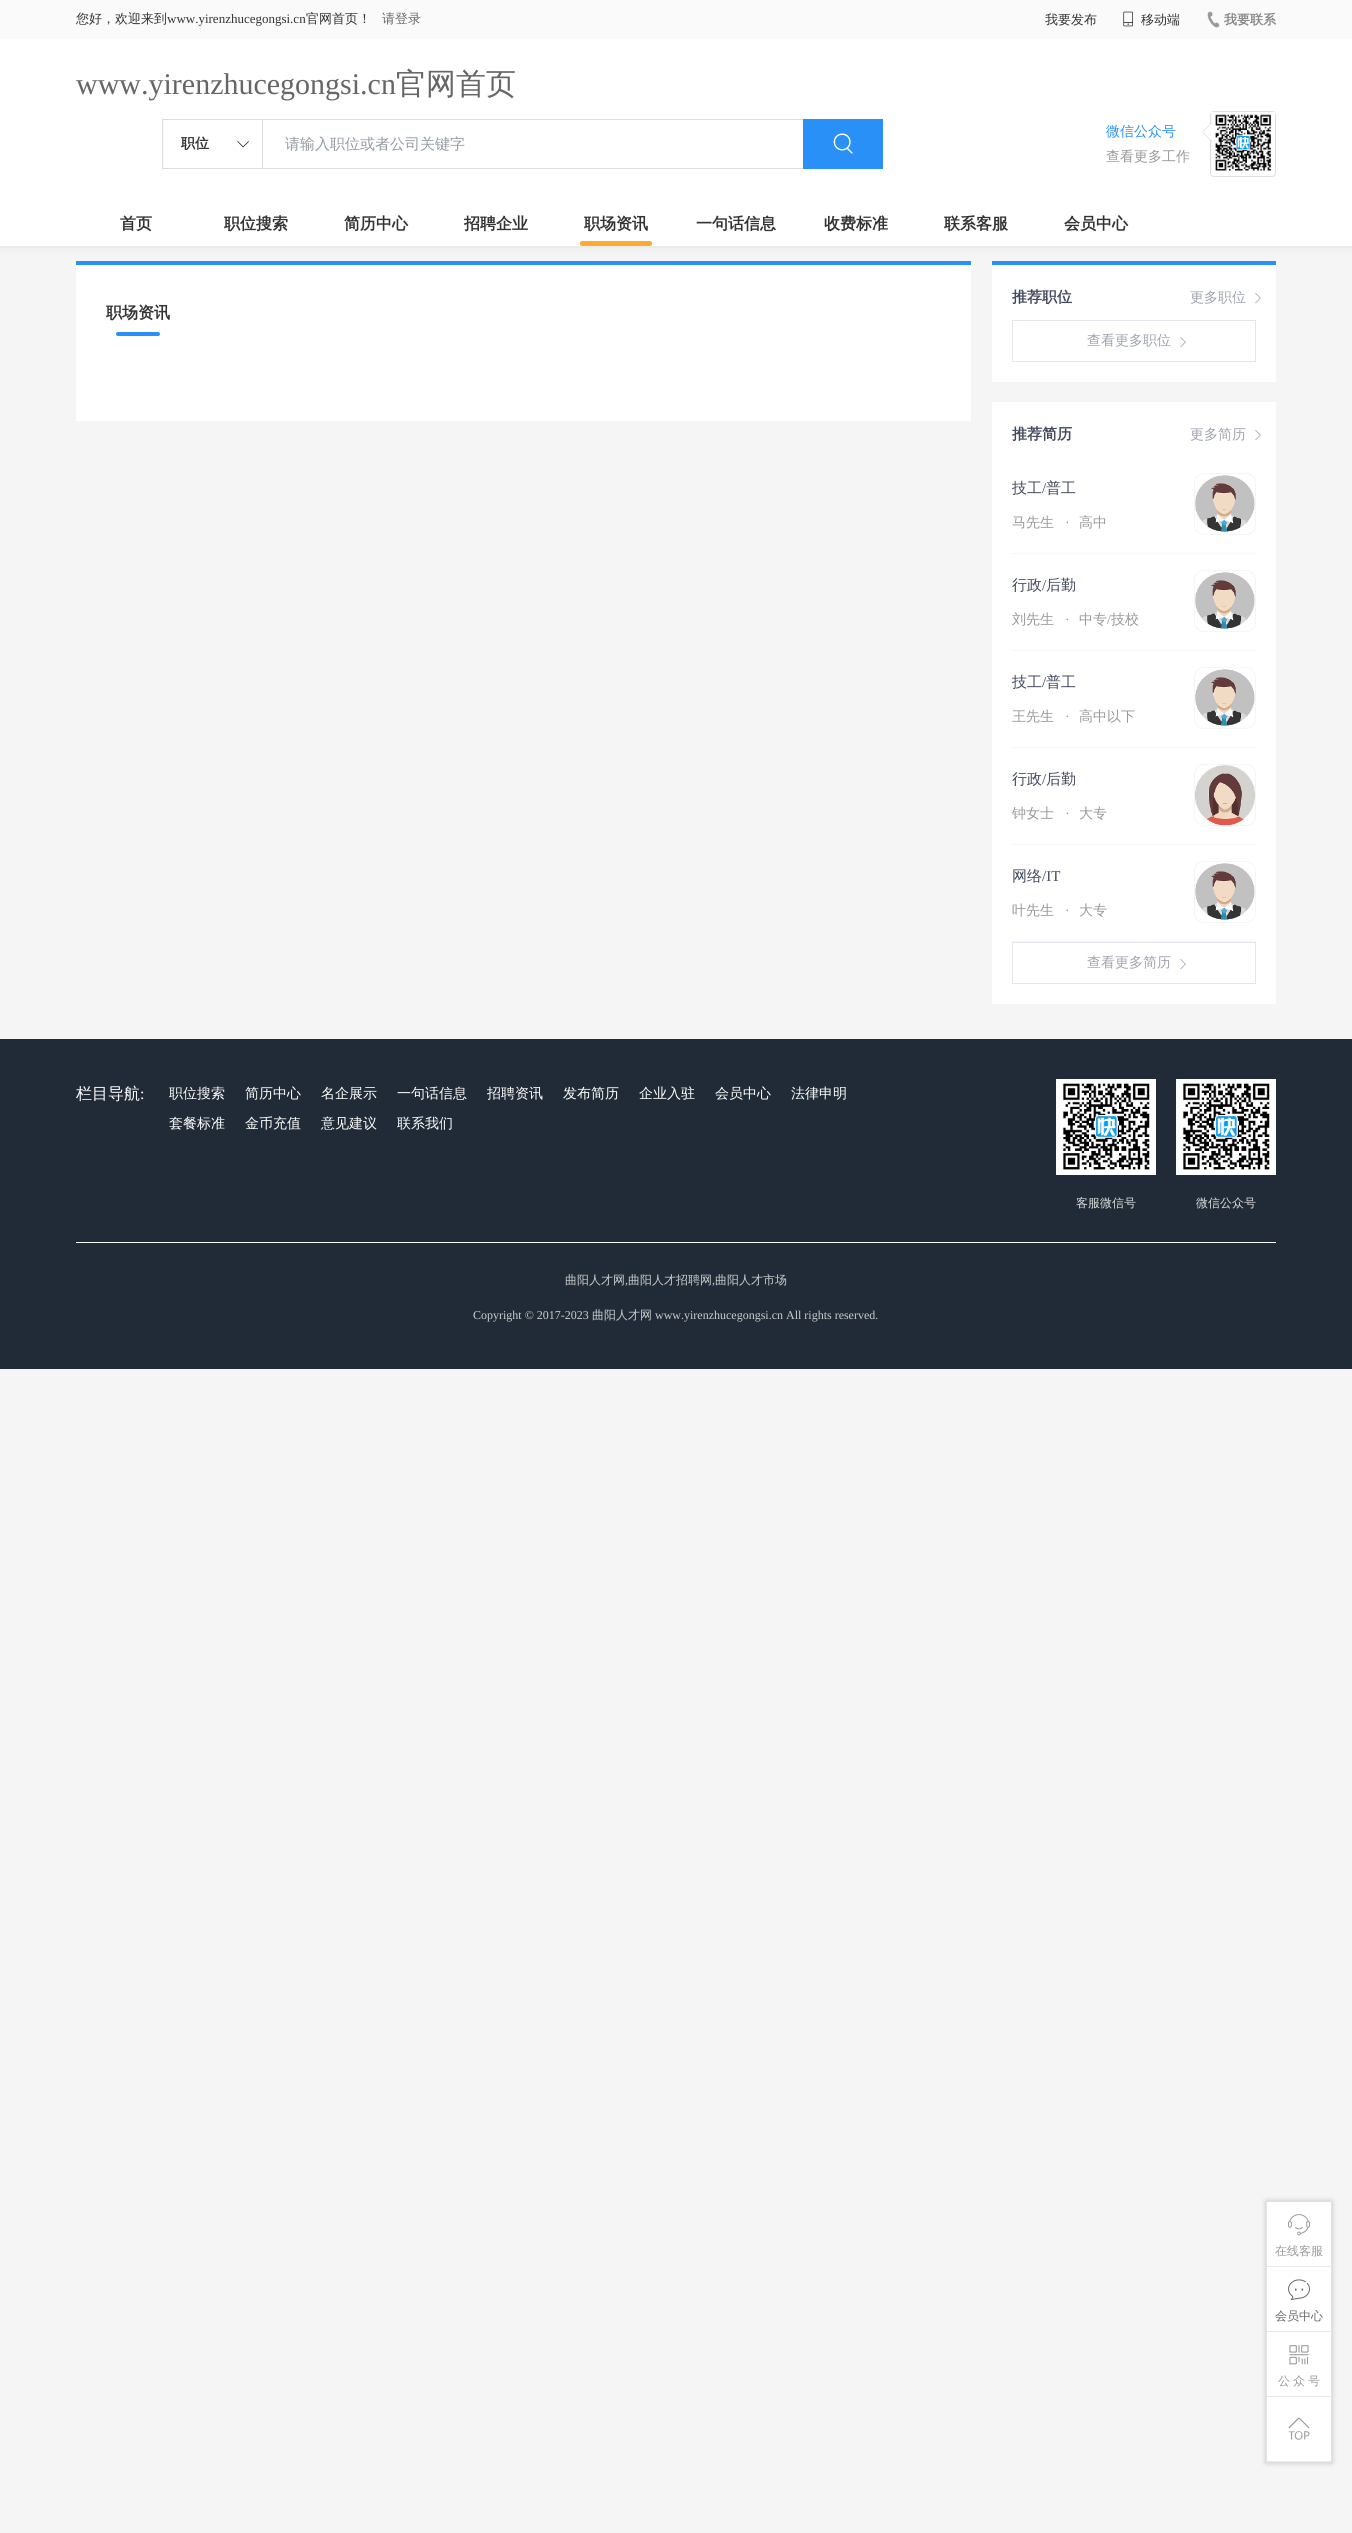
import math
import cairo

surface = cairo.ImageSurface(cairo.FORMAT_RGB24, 1352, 2533)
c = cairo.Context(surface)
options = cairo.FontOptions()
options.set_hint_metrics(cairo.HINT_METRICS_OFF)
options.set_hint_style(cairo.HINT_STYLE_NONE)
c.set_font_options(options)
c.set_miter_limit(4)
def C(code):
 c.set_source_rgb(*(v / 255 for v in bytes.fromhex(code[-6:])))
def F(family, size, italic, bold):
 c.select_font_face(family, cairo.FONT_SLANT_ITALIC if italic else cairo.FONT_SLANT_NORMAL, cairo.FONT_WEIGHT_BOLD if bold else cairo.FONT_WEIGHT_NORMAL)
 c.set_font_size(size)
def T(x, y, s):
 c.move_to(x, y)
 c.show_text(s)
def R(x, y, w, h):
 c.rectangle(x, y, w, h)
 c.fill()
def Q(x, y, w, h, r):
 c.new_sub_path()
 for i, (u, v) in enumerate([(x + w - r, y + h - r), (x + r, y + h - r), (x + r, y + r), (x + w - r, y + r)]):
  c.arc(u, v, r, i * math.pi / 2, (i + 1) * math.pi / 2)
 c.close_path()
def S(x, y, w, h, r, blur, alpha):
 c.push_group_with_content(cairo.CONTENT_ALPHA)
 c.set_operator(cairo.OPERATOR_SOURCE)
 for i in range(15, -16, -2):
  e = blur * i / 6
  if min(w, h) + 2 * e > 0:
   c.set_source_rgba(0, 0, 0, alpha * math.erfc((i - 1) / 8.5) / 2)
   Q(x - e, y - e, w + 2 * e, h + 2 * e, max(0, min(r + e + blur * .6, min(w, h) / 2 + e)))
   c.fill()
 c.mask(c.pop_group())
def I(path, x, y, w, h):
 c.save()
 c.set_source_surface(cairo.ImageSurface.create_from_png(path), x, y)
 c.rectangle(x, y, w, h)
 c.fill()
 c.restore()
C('f5f5f5')
c.paint()
C('dddddd')
S(0,0,1352,246,0,4,1)
C('ffffff')
R(0,39,1352,207)
C('fafafa')
R(0,0,1352,39)
F('WenQuanYi Zen Hei Medium',13,0,0)
C('333333')
T(76,23,'您好，欢迎来到')
F('Liberation Serif',13,0,0)
T(167,23,'www.yirenzhucegongsi.cn')
F('WenQuanYi Zen Hei Medium',13,0,0)
T(306,23,'官网首页！')
C('666666')
T(382,23,'请登录')
C('333333')
T(1045,24,'我要发布')
I('1.png',1123,11,10,16)
T(1141,24,'移动端')
I('2.png',1207,11,13,17)
F('WenQuanYi Zen Hei',13,0,1)
C('888888')
T(1224,24,'我要联系')
F('Liberation Serif',30,0,0)
C('666666')
T(76,94,'www.yirenzhucegongsi.cn')
F('WenQuanYi Zen Hei Medium',30,0,0)
T(396,94,'官网首页')
c.rectangle(162.5,119.5,100,49)
C('dddddd')
c.set_line_width(1)
c.stroke()
F('WenQuanYi Zen Hei',14,0,1)
C('333333')
T(181,148,'职位')
I('3.png',237,141,12,7)
C('dddddd')
R(263,119,540,1)
R(263,168,540,1)
F('WenQuanYi Zen Hei Medium',15,0,0)
C('9399a5')
T(285,149,'请输入职位或者公司关键字')
C('2990f7')
R(803,119,80,50)
I('4.png',833,133,20,21)
F('WenQuanYi Zen Hei Medium',14,0,0)
T(1106,136,'微信公众号')
C('999999')
T(1106,161,'查看更多工作')
Q(1210.5,111.5,65,65,3.5)
C('dddddd')
c.stroke()
I('5.png',1211,112,64,59)
c.new_path()
c.move_to(1212,122)
c.line_to(1212,142)
c.line_to(1202,132)
c.close_path()
c.fill()
C('ffffff')
c.new_path()
c.move_to(1213,122)
c.line_to(1213,142)
c.line_to(1203,132)
c.close_path()
c.fill()
F('WenQuanYi Zen Hei',16,0,1)
C('333333')
T(120,229,'首页')
T(224,229,'职位搜索')
T(344,229,'简历中心')
T(464,229,'招聘企业')
T(584,229,'职场资讯')
C('fbab2d')
Q(580,241,72,5,2)
c.fill()
C('333333')
T(696,229,'一句话信息')
T(824,229,'收费标准')
T(944,229,'联系客服')
T(1064,229,'会员中心')
C('6e6e6e')
S(1266,2201,66,262,0,2.5,.4)
C('ffffff')
R(1267,2202,64,259)
c.rectangle(1266.5,2201.5,65,261)
C('e0e1e5')
c.stroke()
C('e8e8e8')
R(1267,2266,64,1)
I('6.png',1288,2214,22,22)
F('WenQuanYi Zen Hei Medium',12,0,0)
C('999999')
T(1275,2255,'在线客服')
C('e8e8e8')
R(1267,2331,64,1)
I('7.png',1288,2279,22,22)
C('666666')
T(1275,2320,'会员中心')
C('e8e8e8')
R(1267,2396,64,1)
I('8.png',1289,2345,20,20)
C('999999')
T(1278,2385,'公')
T(1293,2385,'众')
T(1308,2385,'号')
C('e8e8e8')
R(1267,2461,64,1)
I('9.png',1288,2417,22,23)
C('2990f7')
R(76,261,895,4)
C('ffffff')
R(76,265,895,156)
F('WenQuanYi Zen Hei',16,0,1)
C('333333')
T(106,318,'职场资讯')
C('2990f7')
Q(116,332,44,4,2)
c.fill()
R(992,261,284,4)
C('ffffff')
R(992,265,284,117)
F('WenQuanYi Zen Hei',15,0,1)
C('424a5e')
T(1012,302,'推荐职位')
F('WenQuanYi Zen Hei Medium',14,0,0)
C('9fa3b0')
T(1190,302,'更多职位')
I('10.png',1255,293,6,11)
c.rectangle(1012.5,320.5,243,41)
C('e3e7ed')
c.stroke()
C('9fa3b0')
T(1087,345,'查看更多职位')
I('10.png',1180,337,6,11)
C('ffffff')
R(992,402,284,602)
F('WenQuanYi Zen Hei',15,0,1)
C('424a5e')
T(1012,439,'推荐简历')
F('WenQuanYi Zen Hei Medium',14,0,0)
C('9fa3b0')
T(1190,439,'更多简历')
I('10.png',1255,430,6,11)
C('f5f7f9')
R(1012,553,244,1)
F('WenQuanYi Zen Hei Medium',15,0,0)
C('424a5e')
T(1012,493,'技工')
F('Liberation Serif',15,0,0)
T(1042,493,'/')
F('WenQuanYi Zen Hei Medium',15,0,0)
T(1046,493,'普工')
F('WenQuanYi Zen Hei Medium',14,0,0)
C('999999')
T(1012,527,'马先生')
F('Liberation Serif',14,0,0)
T(1065,527,'·')
F('WenQuanYi Zen Hei Medium',14,0,0)
T(1079,527,'高中')
Q(1194.5,473.5,61,61,9.5)
C('f2f5fa')
c.stroke()
I('11.png',1195,475,60,57)
C('f5f7f9')
R(1012,650,244,1)
F('WenQuanYi Zen Hei Medium',15,0,0)
C('424a5e')
T(1012,590,'行政')
F('Liberation Serif',15,0,0)
T(1042,590,'/')
F('WenQuanYi Zen Hei Medium',15,0,0)
T(1046,590,'后勤')
F('WenQuanYi Zen Hei Medium',14,0,0)
C('999999')
T(1012,624,'刘先生')
F('Liberation Serif',14,0,0)
T(1065,624,'·')
F('WenQuanYi Zen Hei Medium',14,0,0)
T(1079,624,'中专')
F('Liberation Serif',14,0,0)
T(1107,624,'/')
F('WenQuanYi Zen Hei Medium',14,0,0)
T(1111,624,'技校')
Q(1194.5,570.5,61,61,9.5)
C('f2f5fa')
c.stroke()
I('12.png',1195,572,60,57)
C('f5f7f9')
R(1012,747,244,1)
F('WenQuanYi Zen Hei Medium',15,0,0)
C('424a5e')
T(1012,687,'技工')
F('Liberation Serif',15,0,0)
T(1042,687,'/')
F('WenQuanYi Zen Hei Medium',15,0,0)
T(1046,687,'普工')
F('WenQuanYi Zen Hei Medium',14,0,0)
C('999999')
T(1012,721,'王先生')
F('Liberation Serif',14,0,0)
T(1065,721,'·')
F('WenQuanYi Zen Hei Medium',14,0,0)
T(1079,721,'高中以下')
Q(1194.5,667.5,61,61,9.5)
C('f2f5fa')
c.stroke()
I('11.png',1195,669,60,57)
C('f5f7f9')
R(1012,844,244,1)
F('WenQuanYi Zen Hei Medium',15,0,0)
C('424a5e')
T(1012,784,'行政')
F('Liberation Serif',15,0,0)
T(1042,784,'/')
F('WenQuanYi Zen Hei Medium',15,0,0)
T(1046,784,'后勤')
F('WenQuanYi Zen Hei Medium',14,0,0)
C('999999')
T(1012,818,'钟女士')
F('Liberation Serif',14,0,0)
T(1065,818,'·')
F('WenQuanYi Zen Hei Medium',14,0,0)
T(1079,818,'大专')
Q(1194.5,764.5,61,61,9.5)
C('f2f5fa')
c.stroke()
I('13.png',1195,765,60,60)
C('f5f7f9')
R(1012,941,244,1)
F('WenQuanYi Zen Hei Medium',15,0,0)
C('424a5e')
T(1012,881,'网络')
F('Liberation Serif',15,0,0)
T(1042,881,'/IT')
F('WenQuanYi Zen Hei Medium',14,0,0)
C('999999')
T(1012,915,'叶先生')
F('Liberation Serif',14,0,0)
T(1065,915,'·')
F('WenQuanYi Zen Hei Medium',14,0,0)
T(1079,915,'大专')
Q(1194.5,861.5,61,61,9.5)
C('f2f5fa')
c.stroke()
I('11.png',1195,863,60,57)
c.rectangle(1012.5,942.5,243,41)
C('e3e7ed')
c.stroke()
C('9fa3b0')
T(1087,967,'查看更多简历')
I('10.png',1180,959,6,11)
C('212b37')
R(0,1039,1352,330)
C('ffffff')
R(76,1242,1200,1)
F('WenQuanYi Zen Hei Medium',16,0,0)
T(76,1099,'栏目导航')
F('Liberation Serif',16,0,0)
T(140,1099,':')
F('WenQuanYi Zen Hei Medium',14,0,0)
T(169,1098,'职位搜索')
T(245,1098,'简历中心')
T(321,1098,'名企展示')
T(397,1098,'一句话信息')
T(487,1098,'招聘资讯')
T(563,1098,'发布简历')
T(639,1098,'企业入驻')
T(715,1098,'会员中心')
T(791,1098,'法律申明')
T(169,1128,'套餐标准')
T(245,1128,'金币充值')
T(321,1128,'意见建议')
T(397,1128,'联系我们')
I('14.png',1056,1079,100,96)
F('WenQuanYi Zen Hei Medium',12,0,0)
C('dddddd')
T(1076,1207,'客服微信号')
I('15.png',1176,1079,100,96)
T(1196,1207,'微信公众号')
C('cccccc')
T(565,1284,'曲阳人才网')
F('Liberation Serif',12,0,0)
T(625,1284,',')
F('WenQuanYi Zen Hei Medium',12,0,0)
T(628,1284,'曲阳人才招聘网')
F('Liberation Serif',12,0,0)
T(712,1284,',')
F('WenQuanYi Zen Hei Medium',12,0,0)
T(715,1284,'曲阳人才市场')
F('Liberation Serif',12,0,0)
T(473,1319,'Copyright © 2017-2023')
F('WenQuanYi Zen Hei Medium',12,0,0)
T(592,1319,'曲阳人才网')
F('Liberation Serif',12,0,0)
T(655,1319,'www.yirenzhucegongsi.cn All rights reserved.')
surface.write_to_png('o.png')
